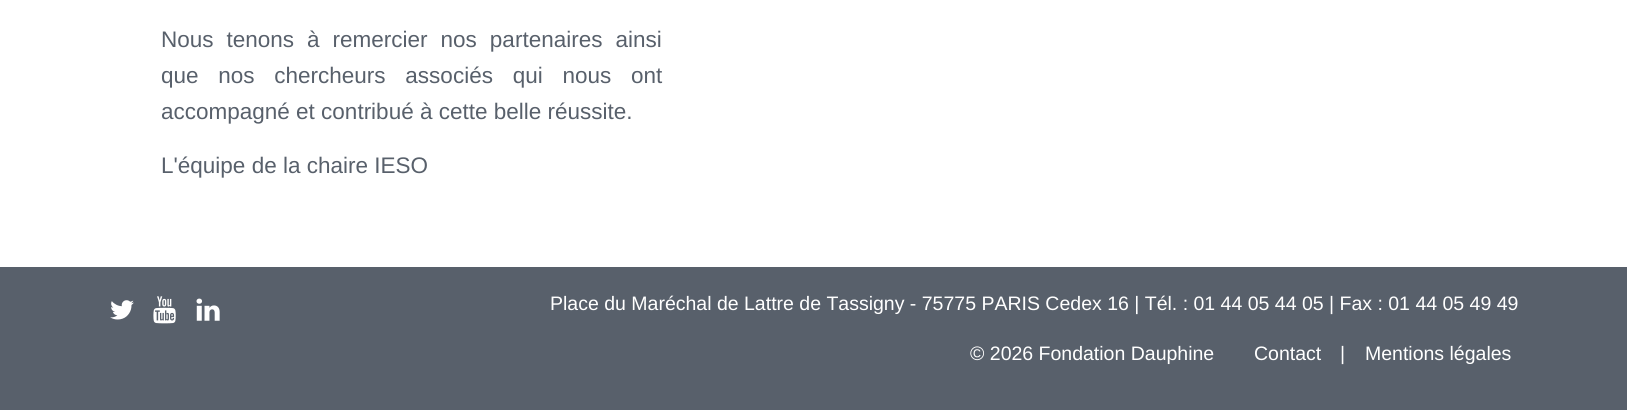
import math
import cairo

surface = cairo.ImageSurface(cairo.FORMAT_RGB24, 1627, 410)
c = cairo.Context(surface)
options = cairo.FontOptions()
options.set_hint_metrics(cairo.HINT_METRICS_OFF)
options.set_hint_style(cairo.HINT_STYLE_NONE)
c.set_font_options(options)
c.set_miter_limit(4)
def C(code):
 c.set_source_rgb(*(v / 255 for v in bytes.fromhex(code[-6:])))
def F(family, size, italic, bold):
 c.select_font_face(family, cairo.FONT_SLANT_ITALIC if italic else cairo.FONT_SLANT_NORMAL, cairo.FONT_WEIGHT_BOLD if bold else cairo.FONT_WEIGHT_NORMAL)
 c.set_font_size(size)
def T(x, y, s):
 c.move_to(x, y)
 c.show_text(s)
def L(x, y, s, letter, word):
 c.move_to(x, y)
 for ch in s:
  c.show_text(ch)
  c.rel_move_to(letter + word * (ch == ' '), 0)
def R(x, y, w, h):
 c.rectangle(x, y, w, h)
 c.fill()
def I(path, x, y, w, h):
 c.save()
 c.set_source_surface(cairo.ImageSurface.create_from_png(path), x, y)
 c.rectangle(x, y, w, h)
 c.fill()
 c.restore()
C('ffffff')
c.paint()
F('Liberation Sans',22.5,0,0)
C('58606b')
L(161,47,'Nous tenons à remercier nos partenaires ainsi',0,6.75)
L(161,83,'que nos chercheurs associés qui nous ont',0,13.5)
T(161,119,'accompagné et contribué à cette belle réussite.')
T(161,173,'L\'équipe de la chaire IESO')
R(0,267,1627,143)
I('1.png',110,300,24,20)
I('2.png',153,296,23,28)
I('3.png',196,298,24,23)
F('Liberation Sans',19.5,0,0)
C('ffffff')
T(550,310,'Place du Maréchal de Lattre de Tassigny - 75775 PARIS Cedex 16 | Tél. : 01 44 05 44 05 | Fax : 01 44 05 49 49')
T(970,360,'© 2026 Fondation Dauphine')
T(1254,360,'Contact')
T(1340,360,'|')
T(1365,360,'Mentions légales')
surface.write_to_png('o.png')
